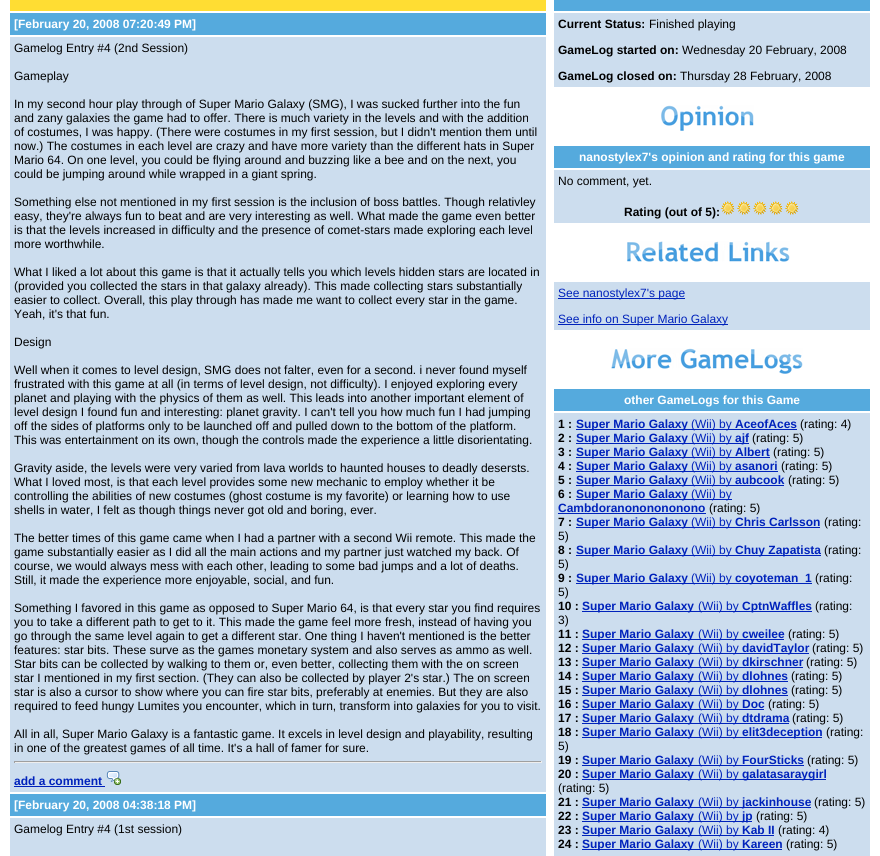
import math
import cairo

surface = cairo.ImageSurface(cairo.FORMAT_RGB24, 880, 856)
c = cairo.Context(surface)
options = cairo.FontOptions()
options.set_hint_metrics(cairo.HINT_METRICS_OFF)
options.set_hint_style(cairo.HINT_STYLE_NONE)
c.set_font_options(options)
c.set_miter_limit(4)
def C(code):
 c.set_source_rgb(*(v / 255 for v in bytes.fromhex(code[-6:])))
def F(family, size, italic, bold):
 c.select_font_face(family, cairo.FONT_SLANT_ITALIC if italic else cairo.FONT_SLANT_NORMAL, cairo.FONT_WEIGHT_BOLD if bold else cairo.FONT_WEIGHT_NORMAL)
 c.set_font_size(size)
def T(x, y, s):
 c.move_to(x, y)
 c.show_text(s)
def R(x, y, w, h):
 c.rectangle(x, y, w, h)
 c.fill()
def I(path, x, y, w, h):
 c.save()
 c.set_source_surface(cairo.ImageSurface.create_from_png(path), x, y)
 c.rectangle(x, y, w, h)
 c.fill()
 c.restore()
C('ffffff')
c.paint()
C('ffdd33')
R(10,0,536,11)
C('55aadd')
R(10,13,536,22)
F('Liberation Sans',12,0,1)
C('ffffff')
T(14,28,'[February 20, 2008 07:20:49 PM]')
C('ccddee')
R(10,37,536,755)
F('Liberation Sans',12,0,0)
C('000000')
T(14,52,'Gamelog Entry #4 (2nd Session)')
T(14,80,'Gameplay')
T(14,108,'In my second hour play through of Super Mario Galaxy (SMG), I was sucked further into the fun')
T(14,122,'and zany galaxies the game had to offer. There is much variety in the levels and with the addition')
T(14,136,'of costumes, I was happy. (There were costumes in my first session, but I didn\'t mention them until')
T(14,150,'now.) The costumes in each level are crazy and have more variety than the different hats in Super')
T(14,164,'Mario 64. On one level, you could be flying around and buzzing like a bee and on the next, you')
T(14,178,'could be jumping around while wrapped in a giant spring.')
T(14,206,'Something else not mentioned in my first session is the inclusion of boss battles. Though relativley')
T(14,220,'easy, they\'re always fun to beat and are very interesting as well. What made the game even better')
T(14,234,'is that the levels increased in difficulty and the presence of comet-stars made exploring each level')
T(14,248,'more worthwhile.')
T(14,276,'What I liked a lot about this game is that it actually tells you which levels hidden stars are located in')
T(14,290,'(provided you collected the stars in that galaxy already). This made collecting stars substantially')
T(14,304,'easier to collect. Overall, this play through has made me want to collect every star in the game.')
T(14,318,'Yeah, it\'s that fun.')
T(14,346,'Design')
T(14,374,'Well when it comes to level design, SMG does not falter, even for a second. i never found myself')
T(14,388,'frustrated with this game at all (in terms of level design, not difficulty). I enjoyed exploring every')
T(14,402,'planet and playing with the physics of them as well. This leads into another important element of')
T(14,416,'level design I found fun and interesting: planet gravity. I can\'t tell you how much fun I had jumping')
T(14,430,'off the sides of platforms only to be launched off and pulled down to the bottom of the platform.')
T(14,444,'This was entertainment on its own, though the controls made the experience a little disorientating.')
T(14,472,'Gravity aside, the levels were very varied from lava worlds to haunted houses to deadly desersts.')
T(14,486,'What I loved most, is that each level provides some new mechanic to employ whether it be')
T(14,500,'controlling the abilities of new costumes (ghost costume is my favorite) or learning how to use')
T(14,514,'shells in water, I felt as though things never got old and boring, ever.')
T(14,542,'The better times of this game came when I had a partner with a second Wii remote. This made the')
T(14,556,'game substantially easier as I did all the main actions and my partner just watched my back. Of')
T(14,570,'course, we would always mess with each other, leading to some bad jumps and a lot of deaths.')
T(14,584,'Still, it made the experience more enjoyable, social, and fun.')
T(14,612,'Something I favored in this game as opposed to Super Mario 64, is that every star you find requires')
T(14,626,'you to take a different path to get to it. This made the game feel more fresh, instead of having you')
T(14,640,'go through the same level again to get a different star. One thing I haven\'t mentioned is the better')
T(14,654,'features: star bits. These surve as the games monetary system and also serves as ammo as well.')
T(14,668,'Star bits can be collected by walking to them or, even better, collecting them with the on screen')
T(14,682,'star I mentioned in my first section. (They can also be collected by player 2\'s star.) The on screen')
T(14,696,'star is also a cursor to show where you can fire star bits, preferably at enemies. But they are also')
T(14,710,'required to feed hungy Lumites you encounter, which in turn, transform into galaxies for you to visit.')
T(14,738,'All in all, Super Mario Galaxy is a fantastic game. It excels in level design and playability, resulting')
T(14,752,'in one of the greatest games of all time. It\'s a hall of famer for sure.')
C('9f9f9f')
R(14,761,528,1)
C('eeeeee')
R(541,761,1,2)
R(14,762,528,1)
C('9f9f9f')
R(14,761,1,2)
F('Liberation Sans',12,0,1)
C('0022bb')
T(14,785,'add a comment')
R(14,786,91,1)
I('1.png',106,771,15,14)
C('55aadd')
R(10,794,536,22)
C('ffffff')
T(14,809,'[February 20, 2008 04:38:18 PM]')
C('ccddee')
R(10,818,536,38)
F('Liberation Sans',12,0,0)
C('000000')
T(14,833,'Gamelog Entry #4 (1st session)')
C('55aadd')
R(554,0,316,11)
C('ccddee')
R(554,13,316,74)
F('Liberation Sans',12,0,1)
C('000000')
T(558,28,'Current Status:')
F('Liberation Sans',12,0,0)
T(649,28,'Finished playing')
F('Liberation Sans',12,0,1)
T(558,54,'GameLog started on:')
F('Liberation Sans',12,0,0)
T(682,54,'Wednesday 20 February, 2008')
F('Liberation Sans',12,0,1)
T(558,80,'GameLog closed on:')
F('Liberation Sans',12,0,0)
T(680,80,'Thursday 28 February, 2008')
I('2.png',661,105,93,26)
C('55aadd')
R(554,146,316,22)
F('Liberation Sans',12,0,1)
C('ffffff')
T(579,161,'nanostylex7\'s opinion and rating for this game')
C('ccddee')
R(554,170,316,53)
F('Liberation Sans',12,0,0)
C('000000')
T(558,185,'No comment, yet.')
F('Liberation Sans',12,0,1)
T(624,216,'Rating (out of 5):')
I('3.png',721,201,14,14)
I('3.png',737,201,14,14)
I('3.png',753,201,14,14)
I('3.png',769,201,14,14)
I('3.png',785,201,14,14)
I('4.png',627,241,163,21)
C('ccddee')
R(554,282,316,48)
C('0022bb')
R(558,298,127,1)
F('Liberation Sans',12,0,0)
T(558,297,'See nanostylex7\'s page')
R(558,324,170,1)
T(558,323,'See info on Super Mario Galaxy')
I('5.png',611,348,192,26)
C('55aadd')
R(554,389,316,22)
F('Liberation Sans',12,0,1)
C('ffffff')
T(624,404,'other GameLogs for this Game')
C('ccddee')
R(554,413,316,443)
C('000000')
T(558,428,'1 :')
C('0022bb')
R(576,429,221,1)
T(576,428,'Super Mario Galaxy')
F('Liberation Sans',12,0,0)
T(691,428,'(Wii) by')
F('Liberation Sans',12,0,1)
T(735,428,'AceofAces')
F('Liberation Sans',12,0,0)
C('000000')
T(800,428,'(rating: 4)')
F('Liberation Sans',12,0,1)
T(558,442,'2 :')
C('0022bb')
R(576,443,173,1)
T(576,442,'Super Mario Galaxy')
F('Liberation Sans',12,0,0)
T(691,442,'(Wii) by')
F('Liberation Sans',12,0,1)
T(735,442,'ajf')
F('Liberation Sans',12,0,0)
C('000000')
T(752,442,'(rating: 5)')
F('Liberation Sans',12,0,1)
T(558,456,'3 :')
C('0022bb')
R(576,457,194,1)
T(576,456,'Super Mario Galaxy')
F('Liberation Sans',12,0,0)
T(691,456,'(Wii) by')
F('Liberation Sans',12,0,1)
T(735,456,'Albert')
F('Liberation Sans',12,0,0)
C('000000')
T(773,456,'(rating: 5)')
F('Liberation Sans',12,0,1)
T(558,470,'4 :')
C('0022bb')
R(576,471,202,1)
T(576,470,'Super Mario Galaxy')
F('Liberation Sans',12,0,0)
T(691,470,'(Wii) by')
F('Liberation Sans',12,0,1)
T(735,470,'asanori')
F('Liberation Sans',12,0,0)
C('000000')
T(781,470,'(rating: 5)')
F('Liberation Sans',12,0,1)
T(558,484,'5 :')
C('0022bb')
R(576,485,208,1)
T(576,484,'Super Mario Galaxy')
F('Liberation Sans',12,0,0)
T(691,484,'(Wii) by')
F('Liberation Sans',12,0,1)
T(735,484,'aubcook')
F('Liberation Sans',12,0,0)
C('000000')
T(788,484,'(rating: 5)')
F('Liberation Sans',12,0,1)
T(558,498,'6 :')
C('0022bb')
R(576,499,156,1)
T(576,498,'Super Mario Galaxy')
F('Liberation Sans',12,0,0)
T(691,498,'(Wii) by')
F('Liberation Sans',12,0,1)
T(558,512,'Cambdoranononononono')
R(558,513,148,1)
F('Liberation Sans',12,0,0)
C('000000')
T(709,512,'(rating: 5)')
F('Liberation Sans',12,0,1)
T(558,526,'7 :')
C('0022bb')
R(576,527,244,1)
T(576,526,'Super Mario Galaxy')
F('Liberation Sans',12,0,0)
T(691,526,'(Wii) by')
F('Liberation Sans',12,0,1)
T(735,526,'Chris Carlsson')
F('Liberation Sans',12,0,0)
C('000000')
T(824,526,'(rating:')
T(558,540,'5)')
F('Liberation Sans',12,0,1)
T(558,554,'8 :')
C('0022bb')
R(576,555,245,1)
T(576,554,'Super Mario Galaxy')
F('Liberation Sans',12,0,0)
T(691,554,'(Wii) by')
F('Liberation Sans',12,0,1)
T(735,554,'Chuy Zapatista')
F('Liberation Sans',12,0,0)
C('000000')
T(824,554,'(rating:')
T(558,568,'5)')
F('Liberation Sans',12,0,1)
T(558,582,'9 :')
C('0022bb')
R(576,583,236,1)
T(576,582,'Super Mario Galaxy')
F('Liberation Sans',12,0,0)
T(691,582,'(Wii) by')
F('Liberation Sans',12,0,1)
T(735,582,'coyoteman_1')
F('Liberation Sans',12,0,0)
C('000000')
T(815,582,'(rating:')
T(558,596,'5)')
F('Liberation Sans',12,0,1)
T(558,610,'10 :')
C('0022bb')
R(582,611,112,1)
T(582,610,'Super Mario Galaxy')
R(694,611,118,1)
F('Liberation Sans',12,0,0)
T(698,610,'(Wii) by')
F('Liberation Sans',12,0,1)
T(742,610,'CptnWaffles')
F('Liberation Sans',12,0,0)
C('000000')
T(815,610,'(rating:')
T(558,624,'3)')
F('Liberation Sans',12,0,1)
T(558,638,'11 :')
C('0022bb')
R(582,639,112,1)
T(582,638,'Super Mario Galaxy')
R(694,639,90,1)
F('Liberation Sans',12,0,0)
T(698,638,'(Wii) by')
F('Liberation Sans',12,0,1)
T(742,638,'cweilee')
F('Liberation Sans',12,0,0)
C('000000')
T(788,638,'(rating: 5)')
F('Liberation Sans',12,0,1)
T(558,652,'12 :')
C('0022bb')
R(582,653,112,1)
T(582,652,'Super Mario Galaxy')
R(694,653,115,1)
F('Liberation Sans',12,0,0)
T(698,652,'(Wii) by')
F('Liberation Sans',12,0,1)
T(742,652,'davidTaylor')
F('Liberation Sans',12,0,0)
C('000000')
T(812,652,'(rating: 5)')
F('Liberation Sans',12,0,1)
T(558,666,'13 :')
C('0022bb')
R(582,667,112,1)
T(582,666,'Super Mario Galaxy')
R(694,667,109,1)
F('Liberation Sans',12,0,0)
T(698,666,'(Wii) by')
F('Liberation Sans',12,0,1)
T(742,666,'dkirschner')
F('Liberation Sans',12,0,0)
C('000000')
T(806,666,'(rating: 5)')
F('Liberation Sans',12,0,1)
T(558,680,'14 :')
C('0022bb')
R(582,681,112,1)
T(582,680,'Super Mario Galaxy')
R(694,681,94,1)
F('Liberation Sans',12,0,0)
T(698,680,'(Wii) by')
F('Liberation Sans',12,0,1)
T(742,680,'dlohnes')
F('Liberation Sans',12,0,0)
C('000000')
T(791,680,'(rating: 5)')
F('Liberation Sans',12,0,1)
T(558,694,'15 :')
C('0022bb')
R(582,695,112,1)
T(582,694,'Super Mario Galaxy')
R(694,695,94,1)
F('Liberation Sans',12,0,0)
T(698,694,'(Wii) by')
F('Liberation Sans',12,0,1)
T(742,694,'dlohnes')
F('Liberation Sans',12,0,0)
C('000000')
T(791,694,'(rating: 5)')
F('Liberation Sans',12,0,1)
T(558,708,'16 :')
C('0022bb')
R(582,709,112,1)
T(582,708,'Super Mario Galaxy')
R(694,709,70,1)
F('Liberation Sans',12,0,0)
T(698,708,'(Wii) by')
F('Liberation Sans',12,0,1)
T(742,708,'Doc')
F('Liberation Sans',12,0,0)
C('000000')
T(768,708,'(rating: 5)')
F('Liberation Sans',12,0,1)
T(558,722,'17 :')
C('0022bb')
R(582,723,112,1)
T(582,722,'Super Mario Galaxy')
R(694,723,95,1)
F('Liberation Sans',12,0,0)
T(698,722,'(Wii) by')
F('Liberation Sans',12,0,1)
T(742,722,'dtdrama')
F('Liberation Sans',12,0,0)
C('000000')
T(792,722,'(rating: 5)')
F('Liberation Sans',12,0,1)
T(558,736,'18 :')
C('0022bb')
R(582,737,112,1)
T(582,736,'Super Mario Galaxy')
R(694,737,128,1)
F('Liberation Sans',12,0,0)
T(698,736,'(Wii) by')
F('Liberation Sans',12,0,1)
T(742,736,'elit3deception')
F('Liberation Sans',12,0,0)
C('000000')
T(826,736,'(rating:')
T(558,750,'5)')
F('Liberation Sans',12,0,1)
T(558,764,'19 :')
C('0022bb')
R(582,765,112,1)
T(582,764,'Super Mario Galaxy')
R(694,765,110,1)
F('Liberation Sans',12,0,0)
T(698,764,'(Wii) by')
F('Liberation Sans',12,0,1)
T(742,764,'FourSticks')
F('Liberation Sans',12,0,0)
C('000000')
T(807,764,'(rating: 5)')
F('Liberation Sans',12,0,1)
T(558,778,'20 :')
C('0022bb')
R(582,779,112,1)
T(582,778,'Super Mario Galaxy')
R(694,779,132,1)
F('Liberation Sans',12,0,0)
T(698,778,'(Wii) by')
F('Liberation Sans',12,0,1)
T(742,778,'galatasaraygirl')
F('Liberation Sans',12,0,0)
C('000000')
T(558,792,'(rating: 5)')
F('Liberation Sans',12,0,1)
T(558,806,'21 :')
C('0022bb')
R(582,807,112,1)
T(582,806,'Super Mario Galaxy')
R(694,807,117,1)
F('Liberation Sans',12,0,0)
T(698,806,'(Wii) by')
F('Liberation Sans',12,0,1)
T(742,806,'jackinhouse')
F('Liberation Sans',12,0,0)
C('000000')
T(814,806,'(rating: 5)')
F('Liberation Sans',12,0,1)
T(558,820,'22 :')
C('0022bb')
R(582,821,112,1)
T(582,820,'Super Mario Galaxy')
R(694,821,58,1)
F('Liberation Sans',12,0,0)
T(698,820,'(Wii) by')
F('Liberation Sans',12,0,1)
T(742,820,'jp')
F('Liberation Sans',12,0,0)
C('000000')
T(756,820,'(rating: 5)')
F('Liberation Sans',12,0,1)
T(558,834,'23 :')
C('0022bb')
R(582,835,112,1)
T(582,834,'Super Mario Galaxy')
R(694,835,80,1)
F('Liberation Sans',12,0,0)
T(698,834,'(Wii) by')
F('Liberation Sans',12,0,1)
T(742,834,'Kab II')
F('Liberation Sans',12,0,0)
C('000000')
T(778,834,'(rating: 4)')
F('Liberation Sans',12,0,1)
T(558,848,'24 :')
C('0022bb')
R(582,849,112,1)
T(582,848,'Super Mario Galaxy')
R(694,849,88,1)
F('Liberation Sans',12,0,0)
T(698,848,'(Wii) by')
F('Liberation Sans',12,0,1)
T(742,848,'Kareen')
F('Liberation Sans',12,0,0)
C('000000')
T(786,848,'(rating: 5)')
surface.write_to_png('o.png')
